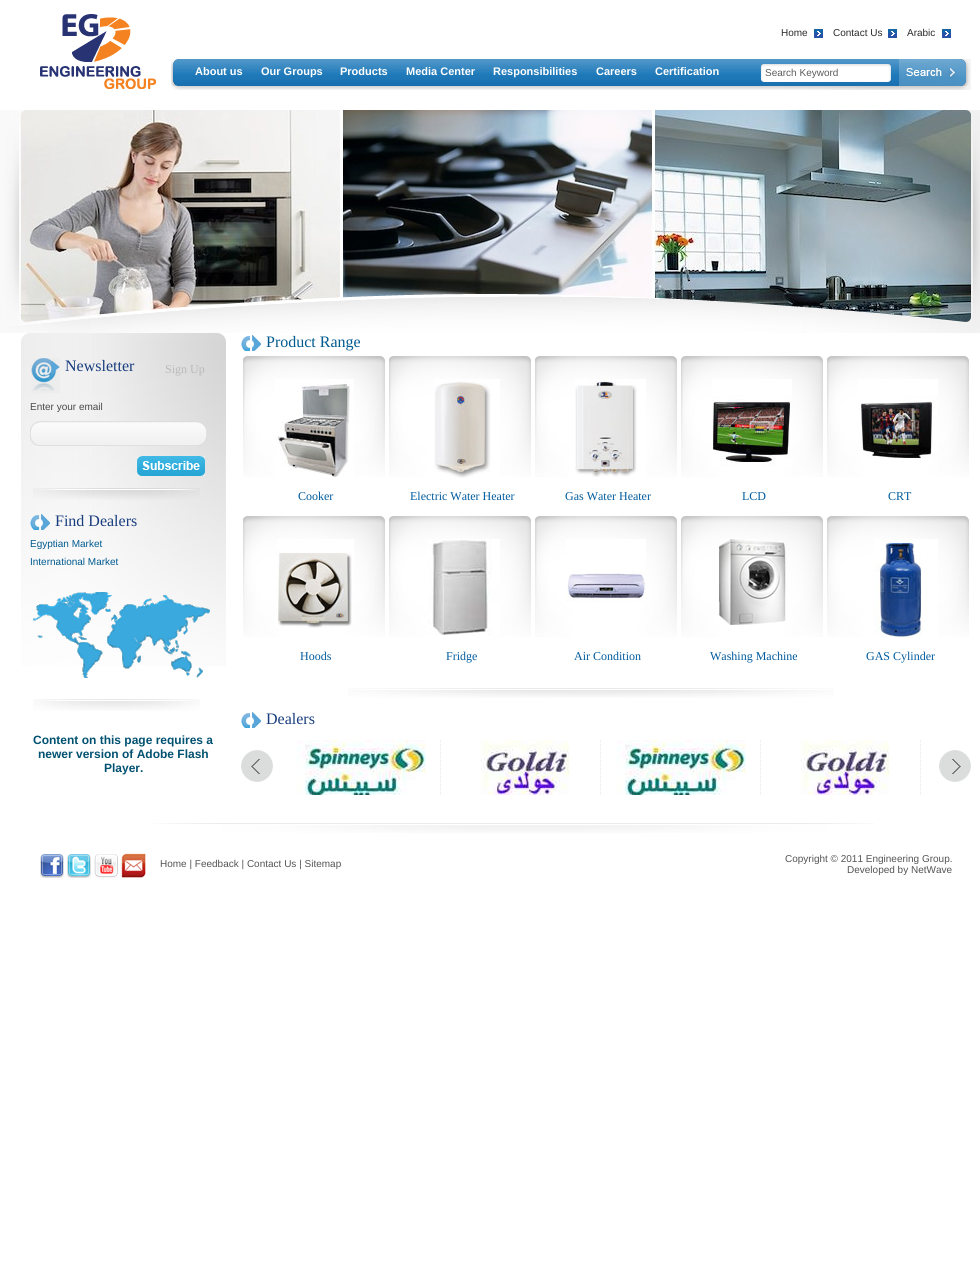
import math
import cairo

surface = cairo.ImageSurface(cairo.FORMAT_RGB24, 980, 1263)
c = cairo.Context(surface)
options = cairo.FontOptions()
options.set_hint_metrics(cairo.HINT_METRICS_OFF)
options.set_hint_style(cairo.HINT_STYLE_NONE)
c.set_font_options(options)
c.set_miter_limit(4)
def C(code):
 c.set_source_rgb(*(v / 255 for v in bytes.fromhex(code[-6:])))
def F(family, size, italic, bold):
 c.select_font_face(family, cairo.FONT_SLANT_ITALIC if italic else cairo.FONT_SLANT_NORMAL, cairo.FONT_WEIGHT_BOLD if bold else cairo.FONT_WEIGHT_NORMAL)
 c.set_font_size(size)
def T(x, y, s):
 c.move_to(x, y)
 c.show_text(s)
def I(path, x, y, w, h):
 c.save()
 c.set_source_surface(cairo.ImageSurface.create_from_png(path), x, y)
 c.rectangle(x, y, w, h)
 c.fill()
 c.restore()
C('ffffff')
c.paint()
I('1.png',40,14,116,75)
F('Liberation Sans',10,0,0)
C('2a2a2a')
T(781,36,'Home')
I('2.png',814,29,9,9)
T(833,36,'Contact Us')
I('2.png',888,29,9,9)
T(907,36,'Arabic')
I('2.png',942,29,9,9)
I('3.png',171,59,15,31)
I('4.png',186,59,575,31)
F('Liberation Sans',11,0,1)
C('ffffff')
T(195,75,'About us')
T(261,75,'Our Groups')
T(340,75,'Products')
T(406,75,'Media Center')
T(493,75,'Responsibilities')
T(596,75,'Careers')
T(655,75,'Certification')
I('5.png',761,59,210,31)
I('6.png',761,64,130,18)
F('Liberation Sans',10,0,0)
C('5c5c5c')
T(765,76,'Search Keyword')
I('7.png',906,68,49,11)
I('9.png',21,110,950,212)
I('8.png',0,110,980,223)
I('10.png',21,333,205,333)
I('11.png',31,358,29,35)
F('Liberation Serif',16,0,0)
C('183d7e')
T(65,371,'Newsletter')
F('Liberation Serif',12,0,0)
C('bababa')
T(165,373,'Sign Up')
F('Liberation Sans',10,0,0)
C('494949')
T(30,410,'Enter your email')
I('12.png',30,421,177,25)
I('13.png',137,456,68,20)
I('14.png',33,488,167,12)
I('15.png',30,514,20,16)
F('Liberation Serif',16,0,0)
C('183d7e')
T(55,526,'Find Dealers')
F('Liberation Sans',10,0,0)
C('005a8f')
T(30,547,'Egyptian Market')
T(30,565,'International Market')
I('16.png',33,592,177,86)
I('17.png',33,699,167,12)
F('Liberation Sans',12,0,1)
C('015171')
T(33,744,'Content on this page requires a')
T(38,758,'newer version of Adobe Flash')
T(104,772,'Player.')
I('18.png',241,335,20,16)
F('Liberation Serif',16,0,0)
C('005a8f')
T(266,347,'Product Range')
I('19.png',243,356,142,121)
I('20.png',275,379,79,98)
F('Liberation Serif',12,0,0)
C('005b9e')
T(298,500,'Cooker')
I('19.png',389,356,142,121)
I('21.png',434,379,66,99)
T(410,500,'Electric Water Heater')
I('19.png',535,356,142,121)
I('22.png',575,379,71,98)
T(565,500,'Gas Water Heater')
I('19.png',681,356,142,121)
I('23.png',712,379,80,88)
T(742,500,'LCD')
I('19.png',827,356,142,121)
I('24.png',858,379,80,80)
T(888,500,'CRT')
I('19.png',243,516,142,121)
I('25.png',277,539,77,89)
T(300,660,'Hoods')
I('19.png',389,516,142,121)
I('26.png',428,539,72,96)
T(446,660,'Fridge')
I('19.png',535,516,142,121)
I('27.png',566,539,80,64)
T(574,660,'Air Condition')
I('19.png',681,516,142,121)
I('28.png',719,539,67,86)
T(710,660,'Washing Machine')
I('19.png',827,516,142,121)
I('29.png',874,539,64,100)
T(866,660,'GAS Cylinder')
I('30.png',348,688,486,10)
I('18.png',241,712,20,16)
F('Liberation Serif',16,0,0)
C('183d7e')
T(266,724,'Dealers')
I('31.png',241,750,32,32)
c.new_path()
c.move_to(440.5,740)
c.line_to(440.5,795)
C('e9e9e9')
c.set_line_width(1)
c.set_dash([1,1])
c.stroke()
I('32.png',297,740,129,55)
c.new_path()
c.move_to(600.5,740)
c.line_to(600.5,795)
c.stroke()
I('33.png',481,740,89,55)
c.new_path()
c.move_to(760.5,740)
c.line_to(760.5,795)
c.stroke()
I('32.png',617,740,129,55)
c.new_path()
c.move_to(920.5,740)
c.line_to(920.5,795)
c.stroke()
I('33.png',801,740,89,55)
I('34.png',939,750,32,32)
I('35.png',153,823,722,10)
I('36.png',40,854,24,24)
I('37.png',67,854,24,24)
I('38.png',94,854,24,24)
I('39.png',121,853,25,25)
F('Liberation Sans',10,0,0)
C('545454')
T(160,867,'Home | Feedback | Contact Us | Sitemap')
T(785,862,'Copyright © 2011 Engineering Group.')
T(847,873,'Developed by NetWave')
surface.write_to_png('o.png')
